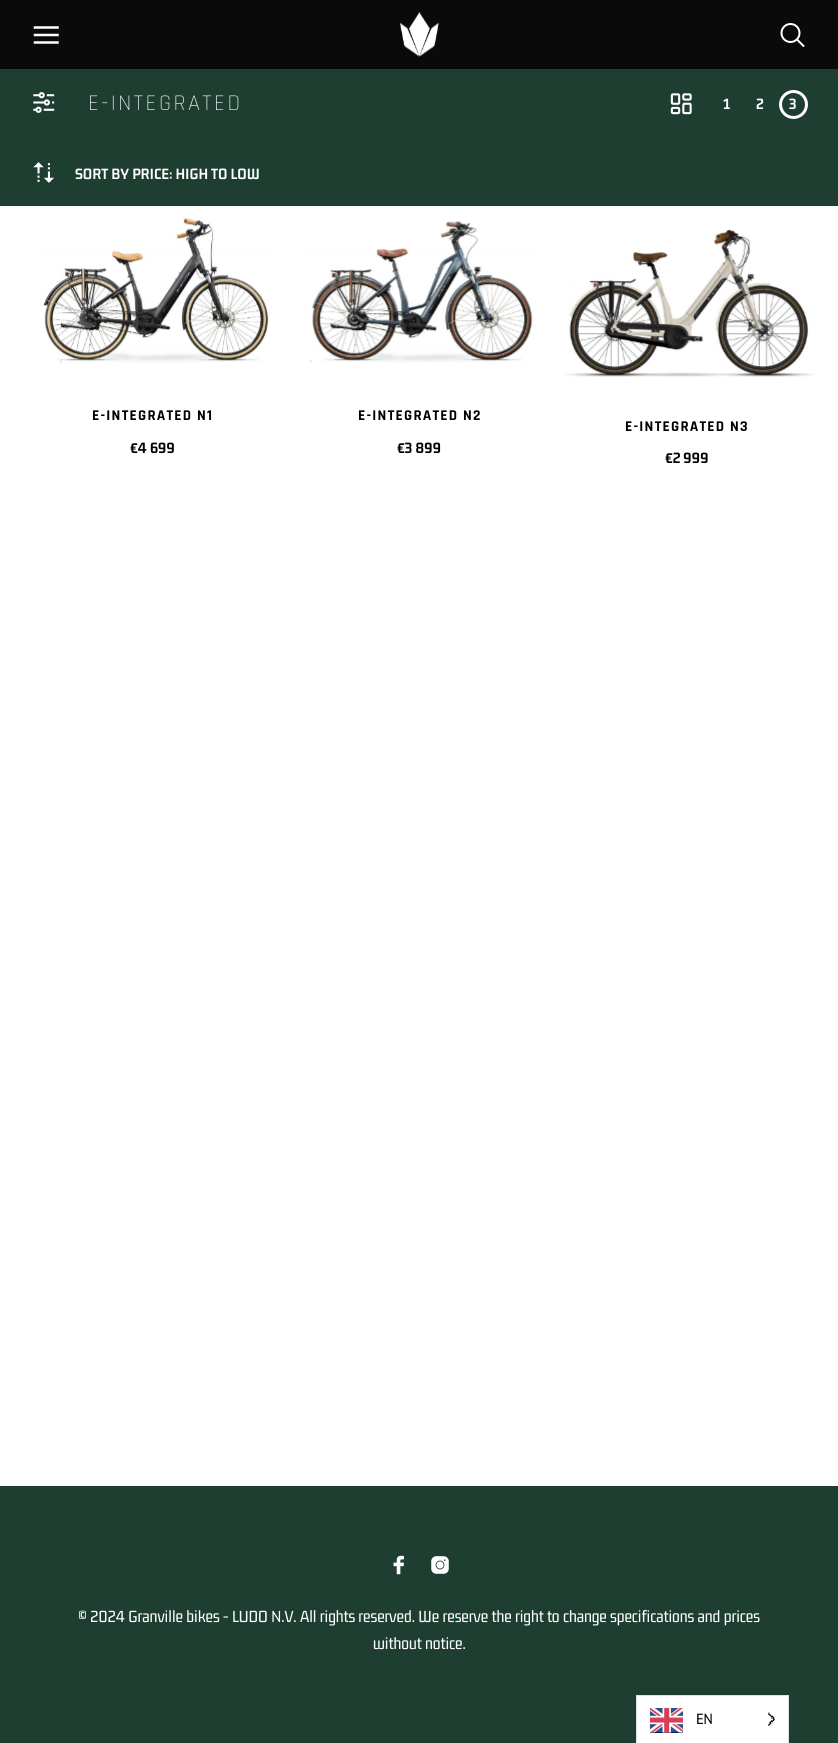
import math
import cairo

surface = cairo.ImageSurface(cairo.FORMAT_RGB24, 838, 1743)
c = cairo.Context(surface)
options = cairo.FontOptions()
options.set_hint_metrics(cairo.HINT_METRICS_OFF)
options.set_hint_style(cairo.HINT_STYLE_NONE)
c.set_font_options(options)
c.set_miter_limit(4)
def C(code):
 c.set_source_rgb(*(v / 255 for v in bytes.fromhex(code[-6:])))
def F(family, size, italic, bold):
 c.select_font_face(family, cairo.FONT_SLANT_ITALIC if italic else cairo.FONT_SLANT_NORMAL, cairo.FONT_WEIGHT_BOLD if bold else cairo.FONT_WEIGHT_NORMAL)
 c.set_font_size(size)
def T(x, y, s):
 c.move_to(x, y)
 c.show_text(s)
def L(x, y, s, letter, word):
 c.move_to(x, y)
 for ch in s:
  c.show_text(ch)
  c.rel_move_to(letter + word * (ch == ' '), 0)
def R(x, y, w, h):
 c.rectangle(x, y, w, h)
 c.fill()
def I(path, x, y, w, h):
 c.save()
 c.set_source_surface(cairo.ImageSurface.create_from_png(path), x, y)
 c.rectangle(x, y, w, h)
 c.fill()
 c.restore()
C('ffffff')
c.paint()
C('0a0a0a')
R(0,0,838,69)
I('1.png',33,26,26,18)
I('2.png',400,12,39,45)
I('3.png',780,23,25,24)
C('1e3e31')
R(0,69,838,137)
I('4.png',33,92,22,21)
F('Rajdhani Light',22.5,0,0)
C('ffffff')
L(88,110,'E-INTEGRATED',2.5,0)
I('5.png',670,93,22,22)
F('Gemunu Libre',16.25,0,1)
T(723,109,'1')
T(756,109,'2')
c.new_path()
c.arc(793.5,104.5,13,0,2 * math.pi)
c.set_line_width(3)
c.stroke()
T(789,109,'3')
I('6.png',33,162,21,21)
T(75,179,'SORT BY PRICE: HIGH TO LOW')
I('7.png',43,217,227,147)
F('Rajdhani',15,0,1)
C('000000')
L(92,420,'E-INTEGRATED N1',1.25,0)
F('Gemunu Libre',16.25,0,1)
T(130,453,'€4 699')
I('8.png',309,221,224,142)
F('Rajdhani',15,0,1)
L(358,420,'E-INTEGRATED N2',1.25,0)
F('Gemunu Libre',16.25,0,1)
T(397,453,'€3 899')
I('9.png',565,229,249,148)
F('Rajdhani',15,0,1)
L(625,431,'E-INTEGRATED N3',1.25,0)
F('Gemunu Libre',16.25,0,1)
T(665,463,'€2 999')
C('1e3e31')
R(0,1486,838,257)
I('10.png',393,1555,11,20)
I('11.png',431,1556,18,18)
F('Gemunu Libre',17.5,0,0)
C('ffffff')
T(78,1622,'© 2024 Granville bikes - LUDO N.V. All rights reserved. We reserve the right to change specifications and prices')
T(373,1649,'without notice.')
c.rectangle(636.5,1695.5,152,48)
c.fill_preserve()
C('e0e0e0')
c.set_line_width(1)
c.stroke()
I('12.png',650,1708,33,25)
F('Gemunu Libre',16.25,0,0)
C('000000')
T(696,1724,'EN')
I('13.png',768,1712,7,14)
surface.write_to_png('o.png')
